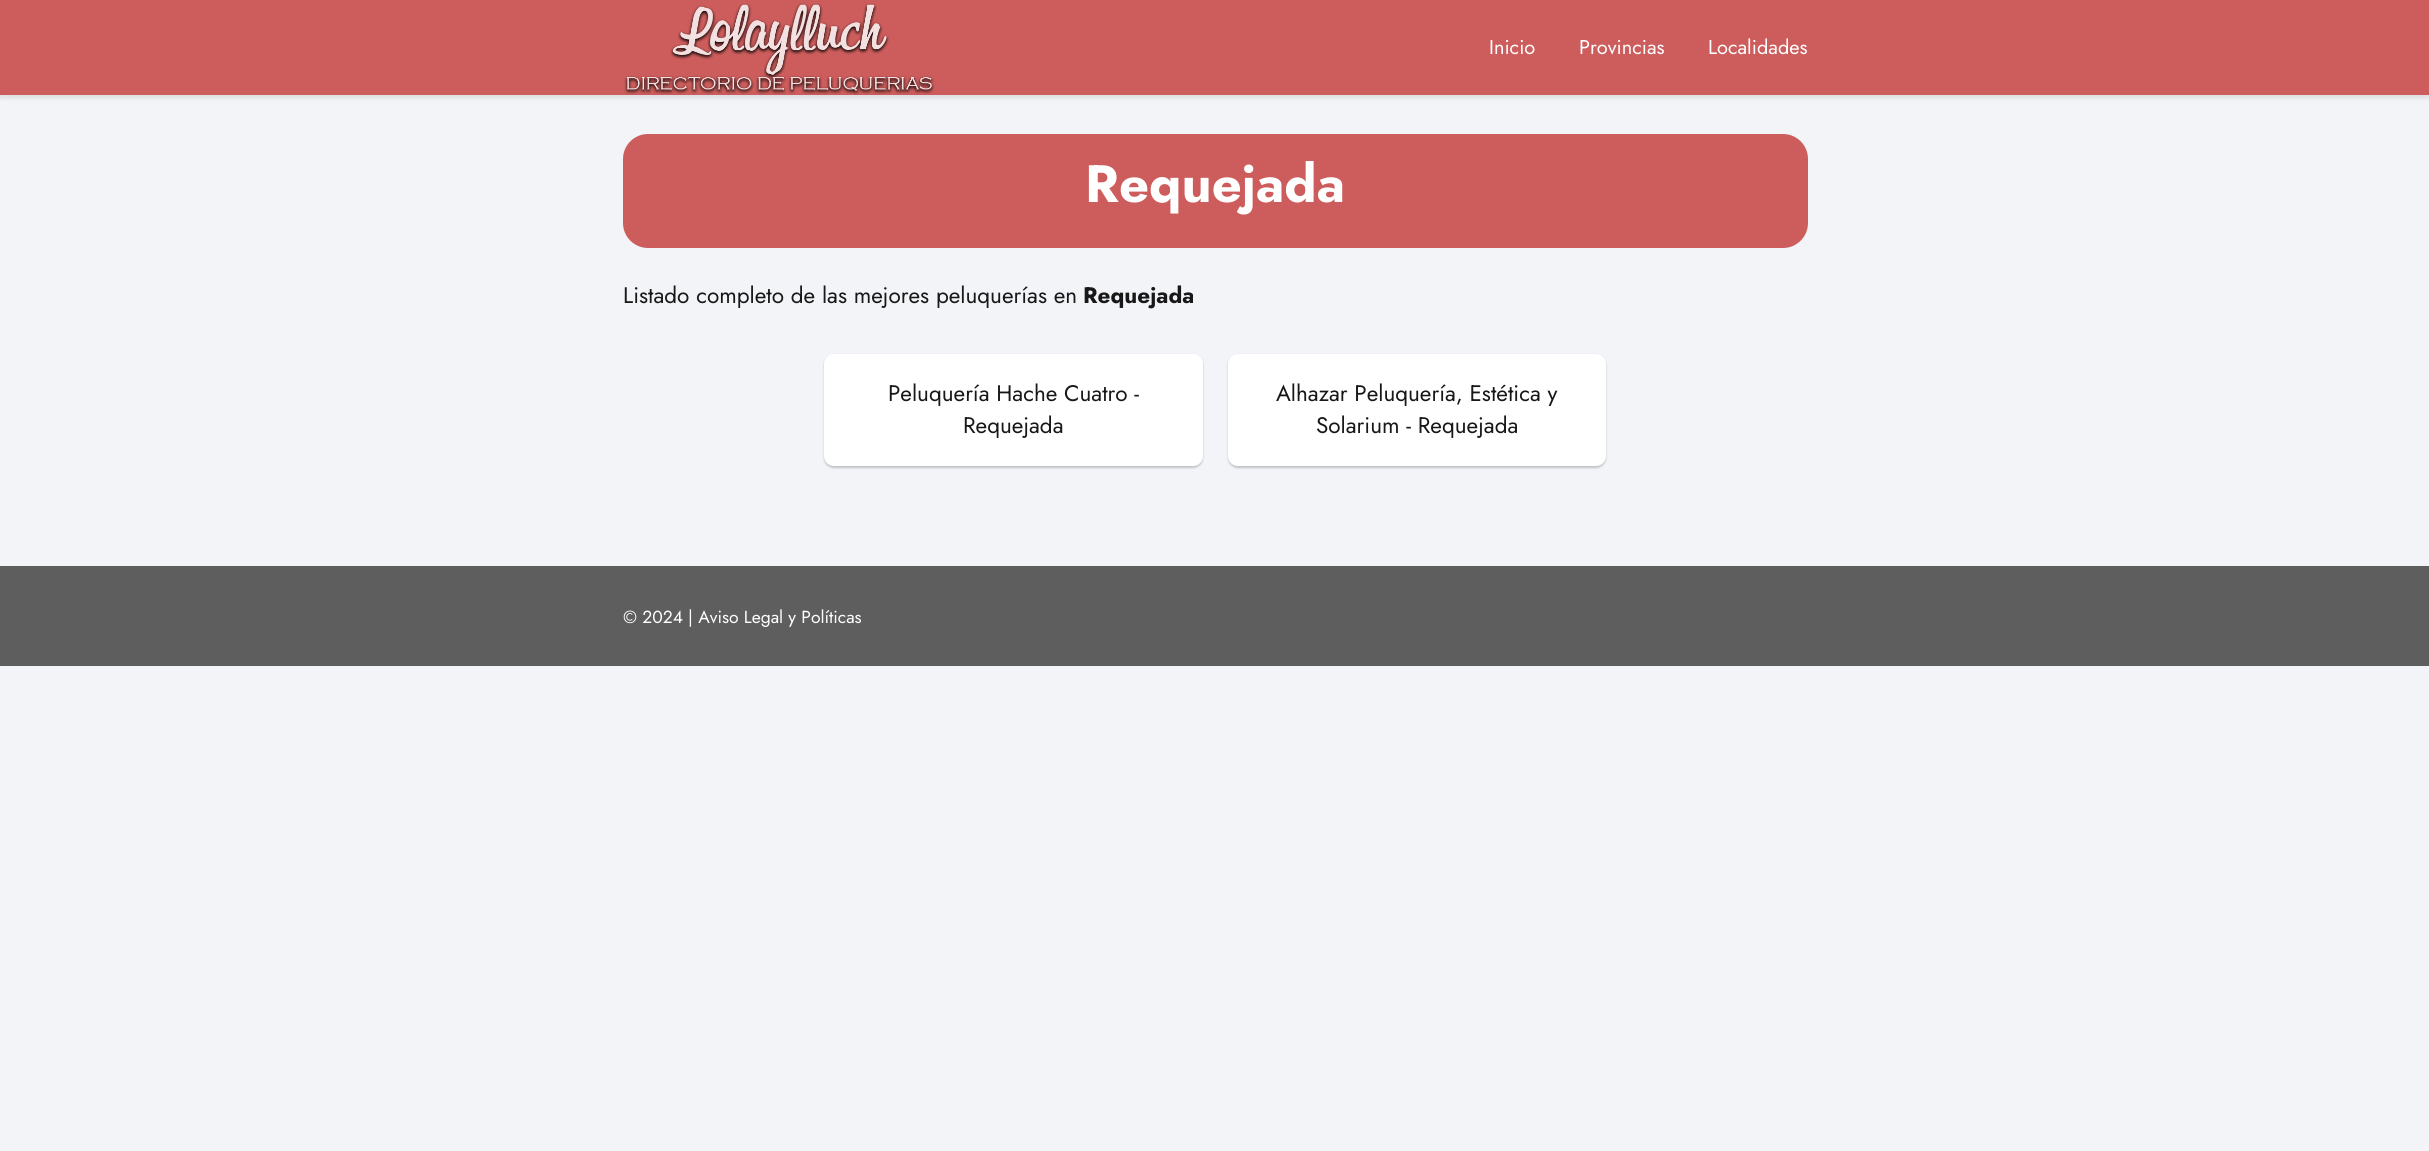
import math
import cairo

surface = cairo.ImageSurface(cairo.FORMAT_RGB24, 2429, 1151)
c = cairo.Context(surface)
options = cairo.FontOptions()
options.set_hint_metrics(cairo.HINT_METRICS_OFF)
options.set_hint_style(cairo.HINT_STYLE_NONE)
c.set_font_options(options)
c.set_miter_limit(4)
def C(code):
 c.set_source_rgb(*(v / 255 for v in bytes.fromhex(code[-6:])))
def F(family, size, italic, bold):
 c.select_font_face(family, cairo.FONT_SLANT_ITALIC if italic else cairo.FONT_SLANT_NORMAL, cairo.FONT_WEIGHT_BOLD if bold else cairo.FONT_WEIGHT_NORMAL)
 c.set_font_size(size)
def T(x, y, s):
 c.move_to(x, y)
 c.show_text(s)
def R(x, y, w, h):
 c.rectangle(x, y, w, h)
 c.fill()
def Q(x, y, w, h, r):
 c.new_sub_path()
 for i, (u, v) in enumerate([(x + w - r, y + h - r), (x + r, y + h - r), (x + r, y + r), (x + w - r, y + r)]):
  c.arc(u, v, r, i * math.pi / 2, (i + 1) * math.pi / 2)
 c.close_path()
def S(x, y, w, h, r, blur, alpha):
 c.push_group_with_content(cairo.CONTENT_ALPHA)
 c.set_operator(cairo.OPERATOR_SOURCE)
 for i in range(15, -16, -2):
  e = blur * i / 6
  if min(w, h) + 2 * e > 0:
   c.set_source_rgba(0, 0, 0, alpha * math.erfc((i - 1) / 8.5) / 2)
   Q(x - e, y - e, w + 2 * e, h + 2 * e, max(0, min(r + e + blur * .6, min(w, h) / 2 + e)))
   c.fill()
 c.mask(c.pop_group())
def I(path, x, y, w, h):
 c.save()
 c.set_source_surface(cairo.ImageSurface.create_from_png(path), x, y)
 c.rectangle(x, y, w, h)
 c.fill()
 c.restore()
C('f3f4f8')
c.paint()
C('000000')
S(0,3,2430,95,0,2.5,.1)
C('cd5d5c')
R(0,0,2429,95)
I('1.png',624,3,311,92)
F('Jost',20,0,0)
C('ffffff')
T(1489,54,'Inicio')
T(1579,54,'Provincias')
T(1708,54,'Localidades')
C('cd5d5c')
Q(623,134,1185,114,25)
c.fill()
F('Jost',52.5,0,1)
C('ffffff')
T(1085,202,'Requejada')
F('Jost',22.5,0,0)
C('181818')
T(623,303,'Listado completo de las mejores peluquerías en')
F('Jost',22.5,0,1)
T(1083,303,'Requejada')
C('000000')
S(824,355,379,113,10,1,.2)
C('ffffff')
Q(824,354,379,112,10)
c.fill()
F('Jost',22.5,0,0)
C('181818')
T(888,401,'Peluquería Hache Cuatro -')
T(963,433,'Requejada')
C('000000')
S(1228,355,378,113,10,1,.2)
C('ffffff')
Q(1228,354,378,112,10)
c.fill()
C('181818')
T(1276,401,'Alhazar Peluquería, Estética y')
T(1316,433,'Solarium - Requejada')
C('5e5e5e')
R(0,566,2429,100)
F('Jost',17.5,0,0)
C('ffffff')
T(623,623,'© 2024 | Aviso Legal y Políticas')
surface.write_to_png('o.png')
